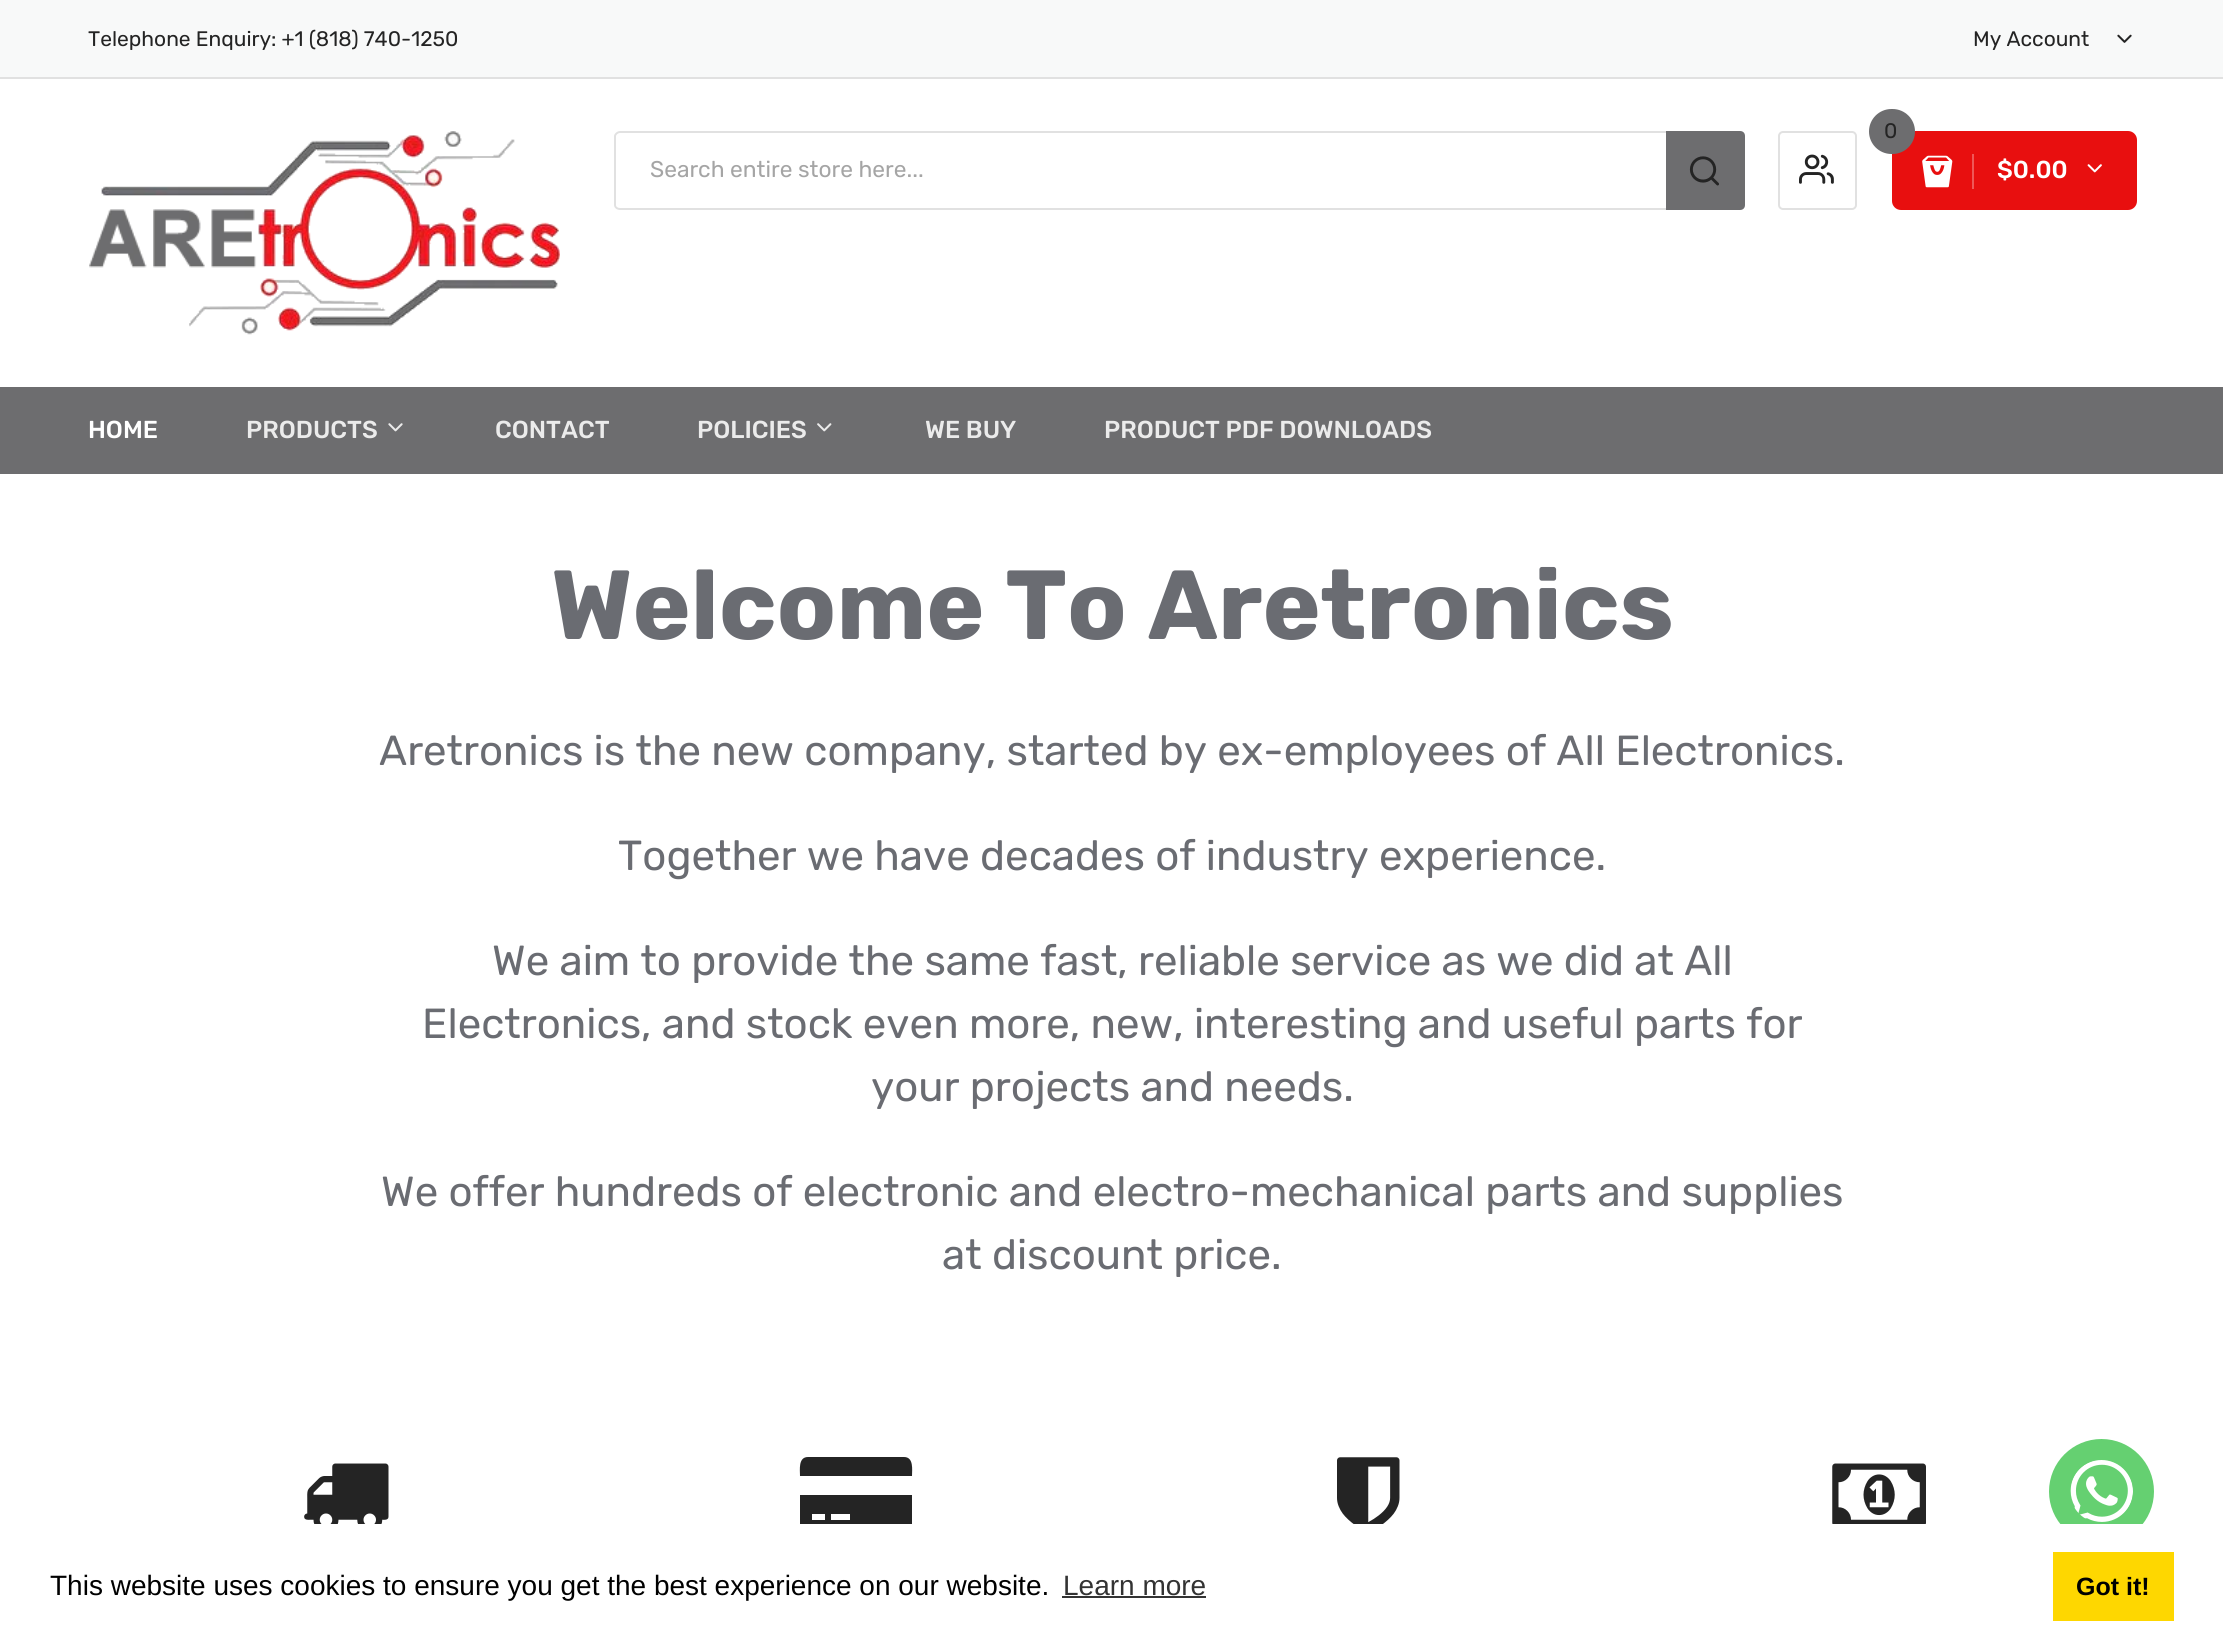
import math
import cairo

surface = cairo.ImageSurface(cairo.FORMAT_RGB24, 2223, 1647)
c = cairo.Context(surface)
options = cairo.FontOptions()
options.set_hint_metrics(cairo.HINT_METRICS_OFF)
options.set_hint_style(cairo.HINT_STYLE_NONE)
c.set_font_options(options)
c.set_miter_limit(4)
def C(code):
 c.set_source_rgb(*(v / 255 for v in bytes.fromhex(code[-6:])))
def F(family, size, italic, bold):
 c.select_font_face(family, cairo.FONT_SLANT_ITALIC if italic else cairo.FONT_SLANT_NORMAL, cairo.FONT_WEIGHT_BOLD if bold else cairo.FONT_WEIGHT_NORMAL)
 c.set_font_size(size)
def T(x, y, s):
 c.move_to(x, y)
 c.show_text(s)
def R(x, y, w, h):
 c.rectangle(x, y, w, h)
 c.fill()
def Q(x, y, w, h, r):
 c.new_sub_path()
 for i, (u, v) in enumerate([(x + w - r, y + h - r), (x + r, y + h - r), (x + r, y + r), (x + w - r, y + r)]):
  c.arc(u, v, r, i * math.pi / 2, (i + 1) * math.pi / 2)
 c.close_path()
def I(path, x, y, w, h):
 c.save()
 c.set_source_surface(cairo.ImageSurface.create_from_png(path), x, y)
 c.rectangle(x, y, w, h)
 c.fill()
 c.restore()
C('ffffff')
c.paint()
C('f8f9f9')
R(0,0,2223,77)
C('e1e1e1')
R(0,77,2223,2)
F('Rubik',21,0,0)
C('242424')
T(88,46,'Telephone Enquiry: +1 (818) 740-1250')
T(1973,46,'My Account')
I('1.png',2117,34,15,9)
I('2.png',89,131,471,204)
C('e1e1e1')
c.set_fill_rule(cairo.FILL_RULE_EVEN_ODD)
c.new_path()
c.move_to(620,131)
c.line_to(1738,131)
c.curve_to(1741,131,1743,134,1743,136)
c.line_to(1743,205)
c.curve_to(1743,208,1741,210,1738,210)
c.line_to(620,210)
c.curve_to(617,210,614,208,614,205)
c.line_to(614,136)
c.curve_to(614,134,617,131,620,131)
c.close_path()
c.move_to(620,133)
c.line_to(1738,133)
c.curve_to(1741,133,1743,135,1743,136)
c.line_to(1743,205)
c.curve_to(1743,207,1741,208,1738,208)
c.line_to(620,208)
c.curve_to(618,208,616,207,616,205)
c.line_to(616,136)
c.curve_to(616,135,618,133,620,133)
c.close_path()
c.fill()
F('Rubik',22.75,0,0)
C('a5a5a5')
T(650,177,'Search entire store here...')
C('6d6d6f')
c.new_path()
c.move_to(1666,131)
c.line_to(1740,131)
c.curve_to(1743,131,1745,133,1745,136)
c.line_to(1745,205)
c.curve_to(1745,208,1743,210,1740,210)
c.line_to(1666,210)
c.close_path()
c.fill()
I('3.png',1689,156,30,30)
Q(1779,132,77,77,4)
C('e1e1e1')
c.stroke()
I('4.png',1799,154,35,30)
C('e80f0f')
Q(1892,131,245,79,9)
c.fill()
C('6d6d6f')
Q(1869,109,46,45,22.5)
c.fill()
F('Rubik',21,0,0)
C('242424')
T(1884,138,'0')
F('Rubik Medium',24.5,0,0)
C('ffffff')
T(1997,178,'$0.00')
I('5.png',2087,164,15,9)
I('6.png',1922,155,31,33)
C('ef5757')
R(1972,154,2,35)
C('6d6d6f')
R(0,387,2223,87)
C('ffffff')
T(88,438,'HOME')
C('ebebeb')
T(246,438,'PRODUCTS')
I('7.png',388,423,15,9)
T(495,438,'CONTACT')
T(697,438,'POLICIES')
I('8.png',817,423,15,9)
T(925,438,'WE BUY')
T(1104,438,'PRODUCT PDF DOWNLOADS')
F('Rubik',98,0,1)
C('6a6c72')
T(551,639,'Welcome To Aretronics')
F('Rubik',42,0,0)
T(379,765,'Aretronics is the new company, started by ex-employees of All Electronics.')
T(618,870,'Together we have decades of industry experience.')
T(492,975,'We aim to provide the same fast, reliable service as we did at All')
T(422,1038,'Electronics, and stock even more, new, interesting and useful parts for')
T(871,1101,'your projects and needs.')
T(381,1206,'We offer hundreds of electronic and electro-mechanical parts and supplies')
T(942,1269,'at discount price.')
I('9.png',304,1463,85,61)
C('242424')
c.set_fill_rule(cairo.FILL_RULE_WINDING)
c.new_path()
c.move_to(800,1524)
c.line_to(800,1495)
c.line_to(912,1495)
c.line_to(912,1527)
c.curve_to(909,1536,893,1532,888,1532)
c.line_to(824,1532)
c.curve_to(819,1532,803,1536,800,1527)
c.close_path()
c.move_to(831,1514)
c.line_to(831,1520)
c.line_to(850,1520)
c.line_to(850,1514)
c.close_path()
c.move_to(812,1514)
c.line_to(812,1520)
c.line_to(825,1520)
c.line_to(825,1514)
c.close_path()
c.move_to(904,1457)
c.curve_to(914,1457,912,1470,912,1476)
c.line_to(800,1476)
c.curve_to(800,1470,798,1457,808,1457)
c.close_path()
c.fill()
I('10.png',1337,1457,63,67)
I('11.png',1832,1463,94,61)
C('65d071')
c.arc(2101.5,1491.5,52.5,0,2 * math.pi)
c.fill()
I('12.png',2070,1460,63,62)
C('ffffff')
R(800,1524,1343,20)
F('Liberation Sans',28,0,0)
C('000000')
T(50,1595,'This website uses cookies to ensure you get the best experience on our website.')
C('333333')
T(1063,1595,'Learn more')
R(1062,1596,144,2)
C('fed700')
R(2053,1552,121,69)
F('Liberation Sans',25,0,1)
C('000000')
T(2076,1595,'Got it!')
surface.write_to_png('o.png')
